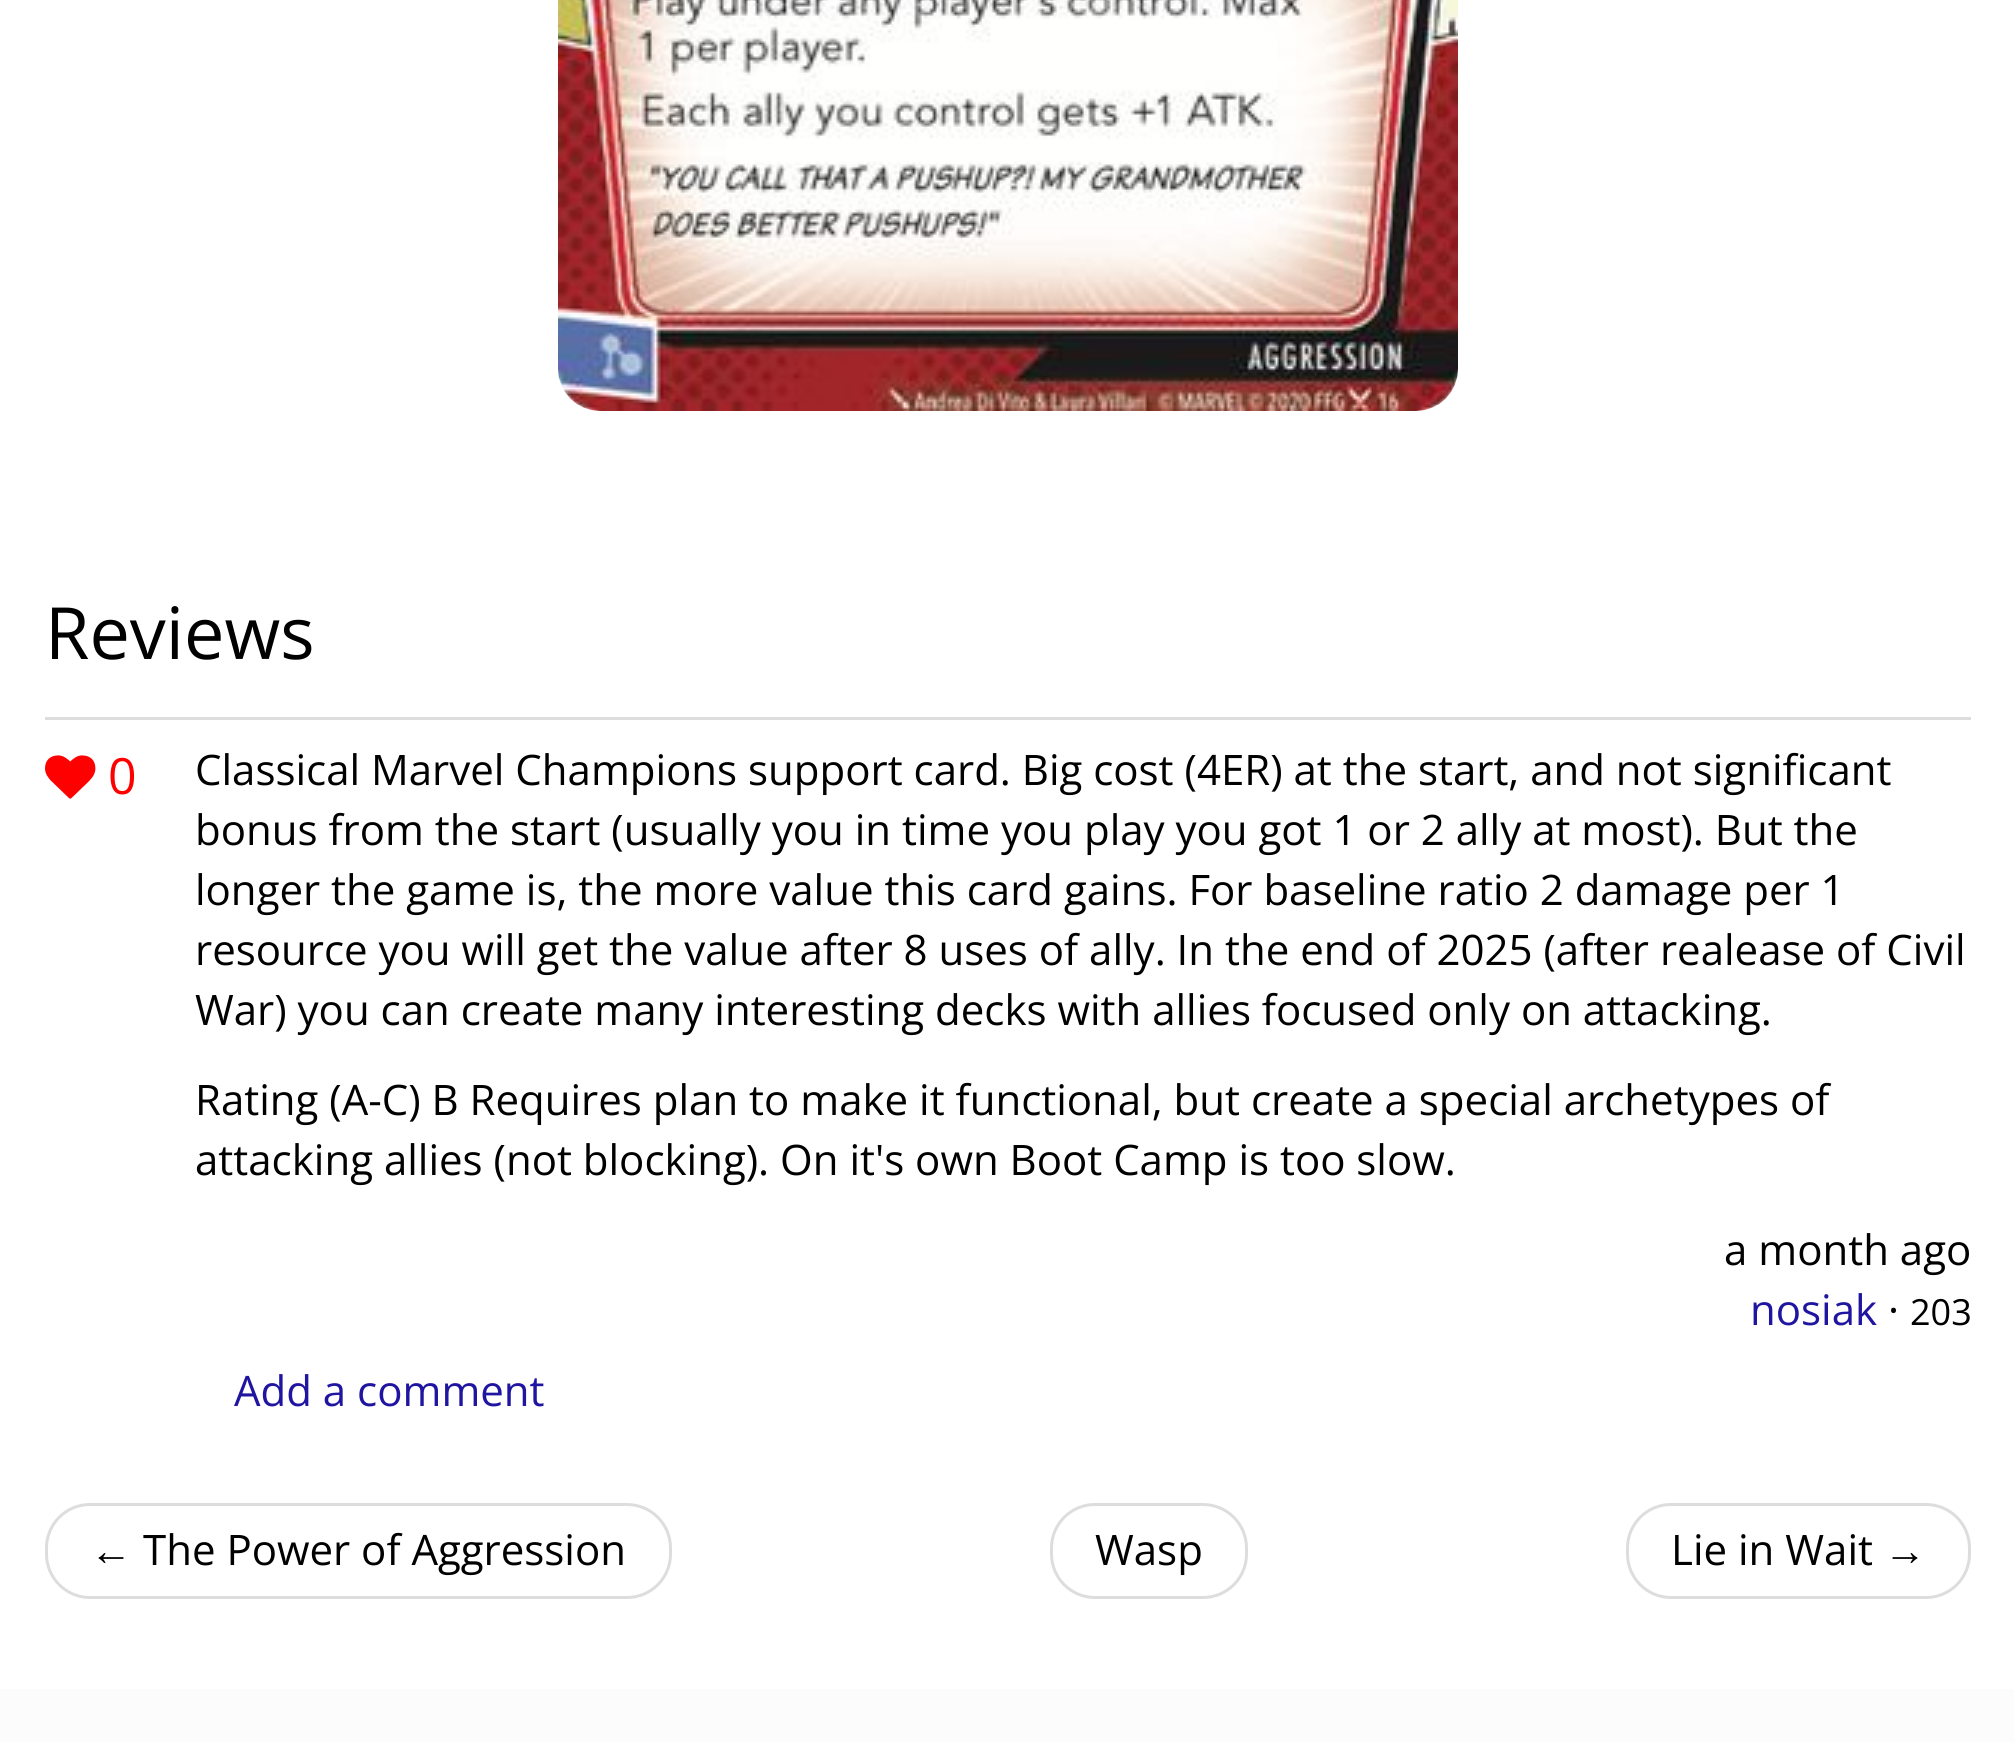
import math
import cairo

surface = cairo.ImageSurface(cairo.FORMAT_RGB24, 2014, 1742)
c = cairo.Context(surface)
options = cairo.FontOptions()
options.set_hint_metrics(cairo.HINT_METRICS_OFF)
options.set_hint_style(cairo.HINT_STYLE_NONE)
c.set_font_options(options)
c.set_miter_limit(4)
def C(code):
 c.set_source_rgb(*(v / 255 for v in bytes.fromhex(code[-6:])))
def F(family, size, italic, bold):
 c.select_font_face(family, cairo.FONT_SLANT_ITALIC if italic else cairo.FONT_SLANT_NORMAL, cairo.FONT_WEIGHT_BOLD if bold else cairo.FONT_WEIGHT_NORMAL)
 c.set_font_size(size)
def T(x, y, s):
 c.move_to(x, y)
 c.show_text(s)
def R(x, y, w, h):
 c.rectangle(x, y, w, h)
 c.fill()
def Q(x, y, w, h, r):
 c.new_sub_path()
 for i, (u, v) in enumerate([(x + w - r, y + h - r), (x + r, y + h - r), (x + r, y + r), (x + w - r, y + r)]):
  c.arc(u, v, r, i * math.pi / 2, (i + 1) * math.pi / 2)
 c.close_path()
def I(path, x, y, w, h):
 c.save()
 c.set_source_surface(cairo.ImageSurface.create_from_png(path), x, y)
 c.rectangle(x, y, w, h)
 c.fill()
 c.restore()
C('fcfcfc')
c.paint()
C('ffffff')
R(0,0,2014,1689)
I('1.png',558,0,900,411)
F('Open Sans',72,0,0)
C('000000')
T(45,659,'Reviews')
C('dddddd')
R(45,717,1926,3)
I('2.png',45,755,51,44)
F('Open Sans',50,0,0)
C('ff0000')
T(108,794,'0')
F('Open Sans',42,0,0)
C('000000')
T(195,785,'Classical Marvel Champions support card. Big cost (4ER) at the start, and not significant')
T(195,845,'bonus from the start (usually you in time you play you got 1 or 2 ally at most). But the')
T(195,905,'longer the game is, the more value this card gains. For baseline ratio 2 damage per 1')
T(195,965,'resource you will get the value after 8 uses of ally. In the end of 2025 (after realease of Civil')
T(195,1025,'War) you can create many interesting decks with allies focused only on attacking.')
T(195,1115,'Rating (A-C) B Requires plan to make it functional, but create a special archetypes of')
T(195,1175,'attacking allies (not blocking). On it\'s own Boot Camp is too slow.')
T(1724,1265,'a month ago')
C('2015a0')
T(1750,1325,'nosiak')
C('000000')
T(1888,1325,'·')
F('Open Sans',36,0,0)
T(1910,1325,'203')
F('Open Sans',42,0,0)
C('2015a0')
T(234,1406,'Add a comment')
Q(46.5,1504.5,624,93,43.5)
C('dddddd')
c.set_line_width(3)
c.stroke()
F('Liberation Sans',42,0,0)
C('000000')
T(90,1565,'←')
F('Open Sans',42,0,0)
T(143,1565,'The Power of Aggression')
Q(1051.5,1504.5,195,93,43.5)
C('dddddd')
c.stroke()
C('000000')
T(1095,1565,'Wasp')
Q(1627.5,1504.5,342,93,43.5)
C('dddddd')
c.stroke()
C('000000')
T(1671,1565,'Lie in Wait')
F('Liberation Sans',42,0,0)
T(1884,1565,'→')
surface.write_to_png('o.png')
